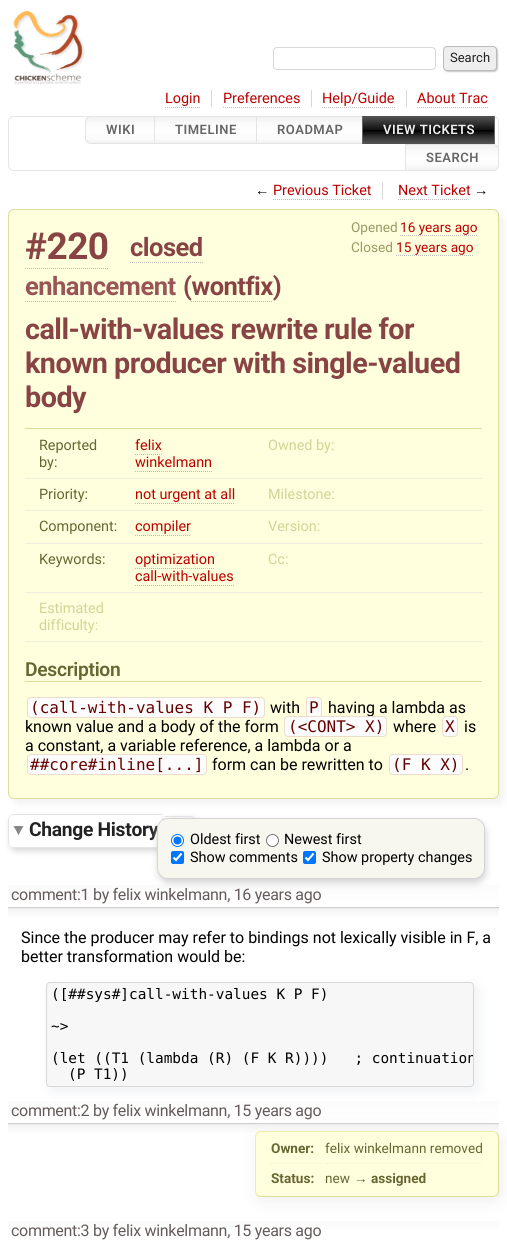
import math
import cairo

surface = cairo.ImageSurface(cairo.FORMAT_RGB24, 507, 1241)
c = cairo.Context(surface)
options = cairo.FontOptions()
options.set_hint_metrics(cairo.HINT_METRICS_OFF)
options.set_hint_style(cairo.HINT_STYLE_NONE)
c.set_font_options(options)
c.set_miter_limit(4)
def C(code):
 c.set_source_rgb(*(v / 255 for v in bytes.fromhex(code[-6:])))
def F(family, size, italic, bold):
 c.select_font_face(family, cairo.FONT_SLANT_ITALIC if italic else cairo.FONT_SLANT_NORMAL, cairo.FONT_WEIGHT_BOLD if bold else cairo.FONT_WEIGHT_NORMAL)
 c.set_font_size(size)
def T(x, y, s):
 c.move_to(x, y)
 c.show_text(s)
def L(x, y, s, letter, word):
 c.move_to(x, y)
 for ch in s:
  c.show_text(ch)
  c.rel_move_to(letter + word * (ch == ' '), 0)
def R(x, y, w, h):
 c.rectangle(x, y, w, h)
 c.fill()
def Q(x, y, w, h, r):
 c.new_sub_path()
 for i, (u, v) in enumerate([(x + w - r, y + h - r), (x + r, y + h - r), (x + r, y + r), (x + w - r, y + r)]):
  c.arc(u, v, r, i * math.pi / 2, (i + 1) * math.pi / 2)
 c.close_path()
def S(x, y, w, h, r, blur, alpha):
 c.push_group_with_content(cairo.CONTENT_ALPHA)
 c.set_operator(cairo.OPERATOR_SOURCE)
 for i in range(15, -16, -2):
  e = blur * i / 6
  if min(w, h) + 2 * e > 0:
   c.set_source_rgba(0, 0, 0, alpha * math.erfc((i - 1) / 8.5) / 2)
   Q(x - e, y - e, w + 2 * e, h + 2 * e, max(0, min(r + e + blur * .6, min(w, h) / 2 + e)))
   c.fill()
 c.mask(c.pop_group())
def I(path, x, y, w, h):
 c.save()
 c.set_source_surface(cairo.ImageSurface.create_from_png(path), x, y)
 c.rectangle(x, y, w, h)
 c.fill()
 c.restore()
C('ffffff')
c.paint()
I('1.png',13,10,72,75)
Q(273.5,47.5,162,22,3.5)
C('d7d7d7')
c.set_line_width(1)
c.stroke()
C('cccccc')
S(444,47,54,25,4,.5,1)
C('eeeeee')
Q(443.5,46.5,53,24,3.5)
c.fill_preserve()
C('bbbbbb')
c.stroke()
F('Roboto',13,0,0)
C('222222')
T(450,62,'Search')
C('d7d7d7')
R(211,90,1,17)
F('Roboto',14.4,0,0)
C('bb0000')
T(165,103,'Login')
c.new_path()
c.move_to(165,107.5)
c.line_to(200,107.5)
C('bbbbbb')
c.set_dash([1,1])
c.stroke()
C('d7d7d7')
R(311,90,1,17)
C('bb0000')
T(223,103,'Preferences')
c.new_path()
c.move_to(223,107.5)
c.line_to(300,107.5)
C('bbbbbb')
c.stroke()
C('d7d7d7')
R(406,90,1,17)
C('bb0000')
T(322,103,'Help/Guide')
c.new_path()
c.move_to(322,107.5)
c.line_to(395,107.5)
C('bbbbbb')
c.stroke()
C('bb0000')
T(417,103,'About Trac')
c.new_path()
c.move_to(417,107.5)
c.line_to(488,107.5)
C('bbbbbb')
c.stroke()
Q(8.5,116.5,490,54,5.5)
C('e4e4e4')
c.set_dash([])
c.stroke()
c.save()
c.new_path()
c.move_to(91,116)
c.line_to(156,116)
c.line_to(156,144)
c.line_to(91,144)
c.curve_to(87.5,144,85,141.5,85,138)
c.line_to(85,122)
c.curve_to(85,118.5,87.5,116,91,116)
c.close_path()
c.clip()
gradient = cairo.LinearGradient(121,117,121,143)
gradient.add_color_stop_rgba(0,0.949,0.949,0.949,1)
gradient.add_color_stop_rgba(.25,0.98,0.98,0.98,1)
gradient.add_color_stop_rgba(.49,0.996,0.996,0.996,1)
gradient.add_color_stop_rgba(.51,1,1,1,1)
gradient.add_color_stop_rgba(.85,0.98,0.98,0.98,1)
gradient.add_color_stop_rgba(1,0.949,0.949,0.949,1)
c.set_source(gradient)
R(85,117,69,26)
c.restore()
c.new_path()
c.move_to(91,116.5)
c.line_to(155.5,116.5)
c.line_to(155.5,143.5)
c.line_to(91,143.5)
c.curve_to(88,143.5,85.5,141,85.5,138)
c.line_to(85.5,122)
c.curve_to(85.5,119,88,116.5,91,116.5)
c.close_path()
c.stroke()
F('Roboto SemiBold',13,0,0)
C('666666')
L(106,134,'WIKI',.5,0)
gradient = cairo.LinearGradient(206,117,206,143)
gradient.add_color_stop_rgba(0,0.949,0.949,0.949,1)
gradient.add_color_stop_rgba(.25,0.98,0.98,0.98,1)
gradient.add_color_stop_rgba(.49,0.996,0.996,0.996,1)
gradient.add_color_stop_rgba(.51,1,1,1,1)
gradient.add_color_stop_rgba(.85,0.98,0.98,0.98,1)
gradient.add_color_stop_rgba(1,0.949,0.949,0.949,1)
c.set_source(gradient)
R(155,117,101,26)
c.rectangle(154.5,116.5,102,27)
C('e4e4e4')
c.stroke()
C('666666')
L(175,134,'TIMELINE',.5,0)
gradient = cairo.LinearGradient(310,117,310,143)
gradient.add_color_stop_rgba(0,0.949,0.949,0.949,1)
gradient.add_color_stop_rgba(.25,0.98,0.98,0.98,1)
gradient.add_color_stop_rgba(.49,0.996,0.996,0.996,1)
gradient.add_color_stop_rgba(.51,1,1,1,1)
gradient.add_color_stop_rgba(.85,0.98,0.98,0.98,1)
gradient.add_color_stop_rgba(1,0.949,0.949,0.949,1)
c.set_source(gradient)
R(257,117,105,26)
c.rectangle(256.5,116.5,107,27)
C('e4e4e4')
c.stroke()
C('666666')
L(277,134,'ROADMAP',.5,0)
c.rectangle(362.5,116.5,132,27)
c.stroke()
gradient = cairo.LinearGradient(429,116,429,144)
gradient.add_color_stop_rgba(0,0.333,0.333,0.333,1)
gradient.add_color_stop_rgba(.25,0.2,0.2,0.2,1)
gradient.add_color_stop_rgba(.49,0.067,0.067,0.067,1)
gradient.add_color_stop_rgba(.51,0,0,0,1)
gradient.add_color_stop_rgba(.75,0.2,0.2,0.2,1)
gradient.add_color_stop_rgba(1,0.333,0.333,0.333,1)
c.set_source(gradient)
R(363,116,131,28)
C('eeeeee')
L(383,134,'VIEW TICKETS',.5,0)
c.save()
c.new_path()
c.move_to(405,144)
c.line_to(493,144)
c.curve_to(496.5,144,499,146.5,499,150)
c.line_to(499,165)
c.curve_to(499,168.5,496.5,171,493,171)
c.line_to(405,171)
c.close_path()
c.clip()
gradient = cairo.LinearGradient(452,145,452,170)
gradient.add_color_stop_rgba(0,0.949,0.949,0.949,1)
gradient.add_color_stop_rgba(.25,0.98,0.98,0.98,1)
gradient.add_color_stop_rgba(.49,0.996,0.996,0.996,1)
gradient.add_color_stop_rgba(.51,1,1,1,1)
gradient.add_color_stop_rgba(.85,0.98,0.98,0.98,1)
gradient.add_color_stop_rgba(1,0.949,0.949,0.949,1)
c.set_source(gradient)
R(406,145,93,25)
c.restore()
c.new_path()
c.move_to(405.5,144.5)
c.line_to(493,144.5)
c.curve_to(496,144.5,498.5,147,498.5,150)
c.line_to(498.5,165)
c.curve_to(498.5,168,496,170.5,493,170.5)
c.line_to(405.5,170.5)
c.close_path()
C('e4e4e4')
c.stroke()
C('666666')
L(426,162,'SEARCH',.5,0)
C('d7d7d7')
R(382,182,1,17)
F('Liberation Sans',14.4,0,0)
C('000000')
T(255,195,'←')
F('Roboto',14.4,0,0)
C('bb0000')
T(273,195,'Previous Ticket')
c.new_path()
c.move_to(273,199.5)
c.line_to(371,199.5)
C('bbbbbb')
c.set_dash([1,1])
c.stroke()
C('bb0000')
T(398,195,'Next Ticket')
c.new_path()
c.move_to(398,199.5)
c.line_to(470,199.5)
C('bbbbbb')
c.stroke()
F('Liberation Sans',14.4,0,0)
C('000000')
T(474,195,'→')
C('f2f2f2')
S(13,214,491,590,6,3,1)
C('ffffdd')
Q(8.5,209.5,490,589,5.5)
c.fill_preserve()
C('dddd99')
c.set_dash([])
c.stroke()
F('Roboto',37,0,1)
C('884444')
L(25,259,'#220',-.5,0)
c.new_path()
c.move_to(25,268.5)
c.line_to(109,268.5)
C('bbbbbb')
c.set_dash([1,1])
c.stroke()
F('Roboto',25.5,0,1)
C('884444')
L(130,256,'closed',-.5,0)
c.new_path()
c.move_to(130,262.5)
c.line_to(203,262.5)
C('bbbbbb')
c.stroke()
C('995555')
L(25,295,'enhancement',-.5,0)
c.new_path()
c.move_to(25,301.5)
c.line_to(177,301.5)
C('bbbbbb')
c.stroke()
C('884444')
L(183,295,'(wontfix)',-.5,0)
c.new_path()
c.move_to(191,301.5)
c.line_to(273,301.5)
C('bbbbbb')
c.stroke()
F('Roboto',13.6,0,0)
C('999966')
T(351,232,'Opened')
C('bb0000')
T(400,232,'16 years ago')
c.new_path()
c.move_to(400,235.5)
c.line_to(478,235.5)
C('bbbbbb')
c.stroke()
C('999966')
T(351,252,'Closed')
C('bb0000')
T(396,252,'15 years ago')
c.new_path()
c.move_to(396,255.5)
c.line_to(473,255.5)
C('bbbbbb')
c.stroke()
F('Roboto',28.75,0,1)
C('884444')
L(25,339,'call-with-values rewrite rule for',-.5,0)
L(25,373,'known producer with single-valued',-.5,0)
L(25,407,'body',-.5,0)
C('dddd99')
R(25,428,457,1)
C('eeeedd')
R(25,478,458,1)
F('Roboto',14.4,0,0)
C('666633')
T(39,450,'Reported')
T(39,467,'by:')
C('bb0000')
T(135,450,'felix')
T(135,467,'winkelmann')
c.new_path()
c.move_to(135,454.5)
c.line_to(162,454.5)
C('bbbbbb')
c.stroke()
c.new_path()
c.move_to(135,471.5)
c.line_to(212,471.5)
c.stroke()
C('d3d398')
T(268,450,'Owned by:')
C('eeeedd')
R(25,510,458,1)
C('666633')
T(39,499,'Priority:')
C('bb0000')
T(135,499,'not urgent at all')
c.new_path()
c.move_to(135,503.5)
c.line_to(235,503.5)
C('bbbbbb')
c.stroke()
C('d3d398')
T(268,499,'Milestone:')
C('eeeedd')
R(25,543,458,1)
C('666633')
T(39,531,'Component:')
C('bb0000')
T(135,531,'compiler')
c.new_path()
c.move_to(135,535.5)
c.line_to(191,535.5)
C('bbbbbb')
c.stroke()
C('d3d398')
T(268,531,'Version:')
C('eeeedd')
R(25,592,458,1)
C('666633')
T(39,564,'Keywords:')
C('bb0000')
T(135,564,'optimization')
c.new_path()
c.move_to(135,568.5)
c.line_to(215,568.5)
C('bbbbbb')
c.stroke()
C('bb0000')
T(135,581,'call-with-values')
c.new_path()
c.move_to(135,585.5)
c.line_to(234,585.5)
C('bbbbbb')
c.stroke()
C('d3d398')
T(268,564,'Cc:')
C('eeeedd')
R(25,641,458,1)
C('d3d398')
T(39,613,'Estimated')
T(39,630,'difficulty:')
C('dddd99')
R(25,681,457,1)
F('Roboto SemiBold',19.25,0,0)
C('666633')
L(25,676,'Description',-.3,0)
C('fcfcfc')
Q(27.5,697.5,237,20,3.5)
c.fill_preserve()
C('eeddcc')
c.set_dash([])
c.stroke()
F('DejaVu Sans Mono',16,0,0)
C('660000')
T(30,713,'(call-with-values K P F)')
F('Roboto',16,0,0)
C('000000')
T(270,713,'with')
C('fcfcfc')
Q(306.5,697.5,15,20,3.5)
c.fill_preserve()
C('eeddcc')
c.stroke()
F('DejaVu Sans Mono',16,0,0)
C('660000')
T(309,713,'P')
F('Roboto',16,0,0)
C('000000')
T(328,713,'having a lambda as')
T(25,732,'known value and a body of the form')
C('fcfcfc')
Q(284.5,716.5,102,20,3.5)
c.fill_preserve()
C('eeddcc')
c.stroke()
F('DejaVu Sans Mono',16,0,0)
C('660000')
T(288,732,'(<CONT> X)')
F('Roboto',16,0,0)
C('000000')
T(393,732,'where')
C('fcfcfc')
Q(442.5,716.5,15,20,3.5)
c.fill_preserve()
C('eeddcc')
c.stroke()
F('DejaVu Sans Mono',16,0,0)
C('660000')
T(445,732,'X')
F('Roboto',16,0,0)
C('000000')
T(464,732,'is')
T(25,751,'a constant, a variable reference, a lambda or a')
C('fcfcfc')
Q(27.5,754.5,179,20,3.5)
c.fill_preserve()
C('eeddcc')
c.stroke()
F('DejaVu Sans Mono',16,0,0)
C('660000')
T(30,770,'##core#inline[...]')
F('Roboto',16,0,0)
C('000000')
T(212,770,'form can be rewritten to')
C('fcfcfc')
Q(389.5,754.5,73,20,3.5)
c.fill_preserve()
C('eeddcc')
c.stroke()
F('DejaVu Sans Mono',16,0,0)
C('660000')
T(392,770,'(F K X)')
F('Roboto',16,0,0)
C('000000')
T(465,770,'.')
c.save()
c.set_fill_rule(cairo.FILL_RULE_EVEN_ODD)
c.new_path()
c.move_to(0,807)
c.line_to(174,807)
c.line_to(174,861)
c.line_to(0,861)
c.close_path()
c.move_to(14,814)
c.line_to(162,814)
c.line_to(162,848)
c.line_to(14,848)
c.curve_to(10.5,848,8,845.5,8,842)
c.line_to(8,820)
c.curve_to(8,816.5,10.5,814,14,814)
c.close_path()
c.clip()
C('d7d7d7')
S(10,817,154,34,6,3,1)
c.restore()
I('2.png',13,826,11,9)
C('e4e4e4')
c.set_fill_rule(cairo.FILL_RULE_EVEN_ODD)
c.new_path()
c.move_to(14,814)
c.line_to(162,814)
c.line_to(162,848)
c.line_to(14,848)
c.curve_to(11,848,8,845,8,842)
c.line_to(8,820)
c.curve_to(8,817,11,814,14,814)
c.close_path()
c.move_to(14,815)
c.line_to(162,815)
c.line_to(162,847)
c.line_to(14,847)
c.curve_to(11,847,9,845,9,842)
c.line_to(9,820)
c.curve_to(9,817,11,815,14,815)
c.close_path()
c.fill()
C('d7d7d7')
S(167,819,31,31,6,3,1)
F('Roboto',19.25,0,1)
C('222222')
L(29,836,'Change History',-.3,0)
C('e4e4e4')
c.new_path()
c.move_to(165,816)
c.line_to(190,816)
c.curve_to(193.5,816,196,818.5,196,822)
c.line_to(196,841)
c.curve_to(196,844.5,193.5,847,190,847)
c.line_to(165,847)
c.close_path()
c.move_to(165,817)
c.line_to(190,817)
c.curve_to(193,817,195,819,195,822)
c.line_to(195,841)
c.curve_to(195,844,193,846,190,846)
c.line_to(165,846)
c.close_path()
c.fill()
gradient = cairo.LinearGradient(254,920,254,885)
gradient.add_color_stop_rgba(0,1,1,1,1)
gradient.add_color_stop_rgba(.14,0.984,0.984,0.984,1)
gradient.add_color_stop_rgba(.32,0.953,0.953,0.953,1)
gradient.add_color_stop_rgba(.37,0.78,0.773,0.773,1)
gradient.add_color_stop_rgba(.37,1,1,1,1)
gradient.add_color_stop_rgba(1,0.984,0.984,0.984,1)
c.set_source(gradient)
R(8,885,491,32)
C('d4d4d4')
S(158,822,328,61,11,3.5,1)
C('f7f7f0')
Q(157.5,818.5,327,60,10.5)
c.fill_preserve()
C('d4d4d4')
c.stroke()
C('ffffff')
c.arc(177.5,840.5,6,0,2 * math.pi)
c.fill_preserve()
C('0075ff')
c.stroke()
c.arc(177.5,840.5,4,0,2 * math.pi)
c.fill()
F('Roboto',14.4,0,0)
C('000000')
T(190,844,'Oldest first')
C('ffffff')
c.new_path()
c.arc(272.5,840.5,6,0,2 * math.pi)
c.fill_preserve()
C('767676')
c.stroke()
C('000000')
T(284,844,'Newest first')
C('0075ff')
Q(171,851,13,13,2)
c.fill()
c.new_path()
c.move_to(173.5,857.5)
c.line_to(176,860)
c.line_to(181.5,853.5)
C('ffffff')
c.set_line_width(2.1)
c.stroke()
C('000000')
T(190,862,'Show comments')
C('0075ff')
Q(303,851,13,13,2)
c.fill()
c.new_path()
c.move_to(305.5,857.5)
c.line_to(308,860)
c.line_to(313.5,853.5)
C('ffffff')
c.stroke()
C('000000')
T(322,862,'Show property changes')
F('Roboto',16,0,0)
C('655b5b')
L(11,900,'comment:1 by felix winkelmann, 16 years ago',-.3,0)
C('000000')
T(21,943,'Since the producer may refer to bindings not lexically visible in F, a')
T(21,962,'better transformation would be:')
gradient = cairo.LinearGradient(254,1136,254,1101)
gradient.add_color_stop_rgba(0,1,1,1,1)
gradient.add_color_stop_rgba(.14,0.984,0.984,0.984,1)
gradient.add_color_stop_rgba(.32,0.953,0.953,0.953,1)
gradient.add_color_stop_rgba(.37,0.78,0.773,0.773,1)
gradient.add_color_stop_rgba(.37,1,1,1,1)
gradient.add_color_stop_rgba(1,0.984,0.984,0.984,1)
c.set_source(gradient)
R(8,1101,491,32)
C('d2d7dc')
S(49,985,431,108,6,5.5,.3)
C('f7f7f7')
Q(46.5,982.5,427,104,3.5)
c.fill_preserve()
C('d7d7d7')
c.set_line_width(1)
c.stroke()
F('DejaVu Sans Mono',14.4,0,0)
C('000000')
T(51,999,'([##sys#]call-with-values K P F)')
T(51,1031,'~>')
c.save()
c.set_fill_rule(cairo.FILL_RULE_WINDING)
Q(47,983,426,103,3)
c.clip()
T(51,1063,'(let ((T1 (lambda (R) (F K R))))   ; continuation')
c.restore()
T(68,1079,'(P T1))')
gradient = cairo.LinearGradient(254,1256,254,1221)
gradient.add_color_stop_rgba(0,1,1,1,1)
gradient.add_color_stop_rgba(.14,0.984,0.984,0.984,1)
gradient.add_color_stop_rgba(.32,0.953,0.953,0.953,1)
gradient.add_color_stop_rgba(.37,0.78,0.773,0.773,1)
gradient.add_color_stop_rgba(.37,1,1,1,1)
gradient.add_color_stop_rgba(1,0.984,0.984,0.984,1)
c.set_source(gradient)
R(8,1221,491,8)
C('eeeeee')
S(257,1134,244,66,6,8,1)
F('Roboto',16,0,0)
C('655b5b')
L(11,1116,'comment:2 by felix winkelmann, 15 years ago',-.3,0)
C('ffffdd')
Q(255,1131,244,66,6)
c.fill()
c.new_path()
c.move_to(497,1133)
c.curve_to(498,1134.5,498.5,1136,498.5,1137.5)
c.line_to(498.5,1190.5)
c.curve_to(498.5,1192,498,1193.5,497,1195)
c.curve_to(495.5,1196,494,1196.5,492.5,1196.5)
c.line_to(261.5,1196.5)
c.curve_to(260,1196.5,258.5,1196,257,1195)
C('dddd99')
c.stroke()
c.new_path()
c.move_to(257,1195)
c.curve_to(256,1193.5,255.5,1192,255.5,1190.5)
c.line_to(255.5,1137.5)
c.curve_to(255.5,1136,256,1134.5,257,1133)
c.curve_to(258.5,1132,260,1131.5,261.5,1131.5)
c.line_to(492.5,1131.5)
c.curve_to(494,1131.5,495.5,1132,497,1133)
C('eeeeaa')
c.stroke()
F('Roboto',13.6,0,1)
C('666633')
T(271,1153,'Owner:')
F('Roboto',13.6,0,0)
T(325,1153,'felix winkelmann removed')
c.new_path()
c.move_to(271,1163.5)
c.line_to(323,1163.5)
C('eeeedd')
c.set_dash([1,1])
c.stroke()
F('Roboto',13.6,0,1)
C('666633')
T(271,1183,'Status:')
c.new_path()
c.move_to(325,1163.5)
c.line_to(483,1163.5)
C('eeeedd')
c.stroke()
F('Roboto',13.6,0,0)
C('666633')
T(325,1183,'new')
F('Liberation Sans',13.6,0,0)
T(354,1183,'→')
F('Roboto',13.6,0,1)
T(371,1183,'assigned')
F('Roboto',16,0,0)
C('655b5b')
L(11,1236,'comment:3 by felix winkelmann, 15 years ago',-.3,0)
surface.write_to_png('o.png')
